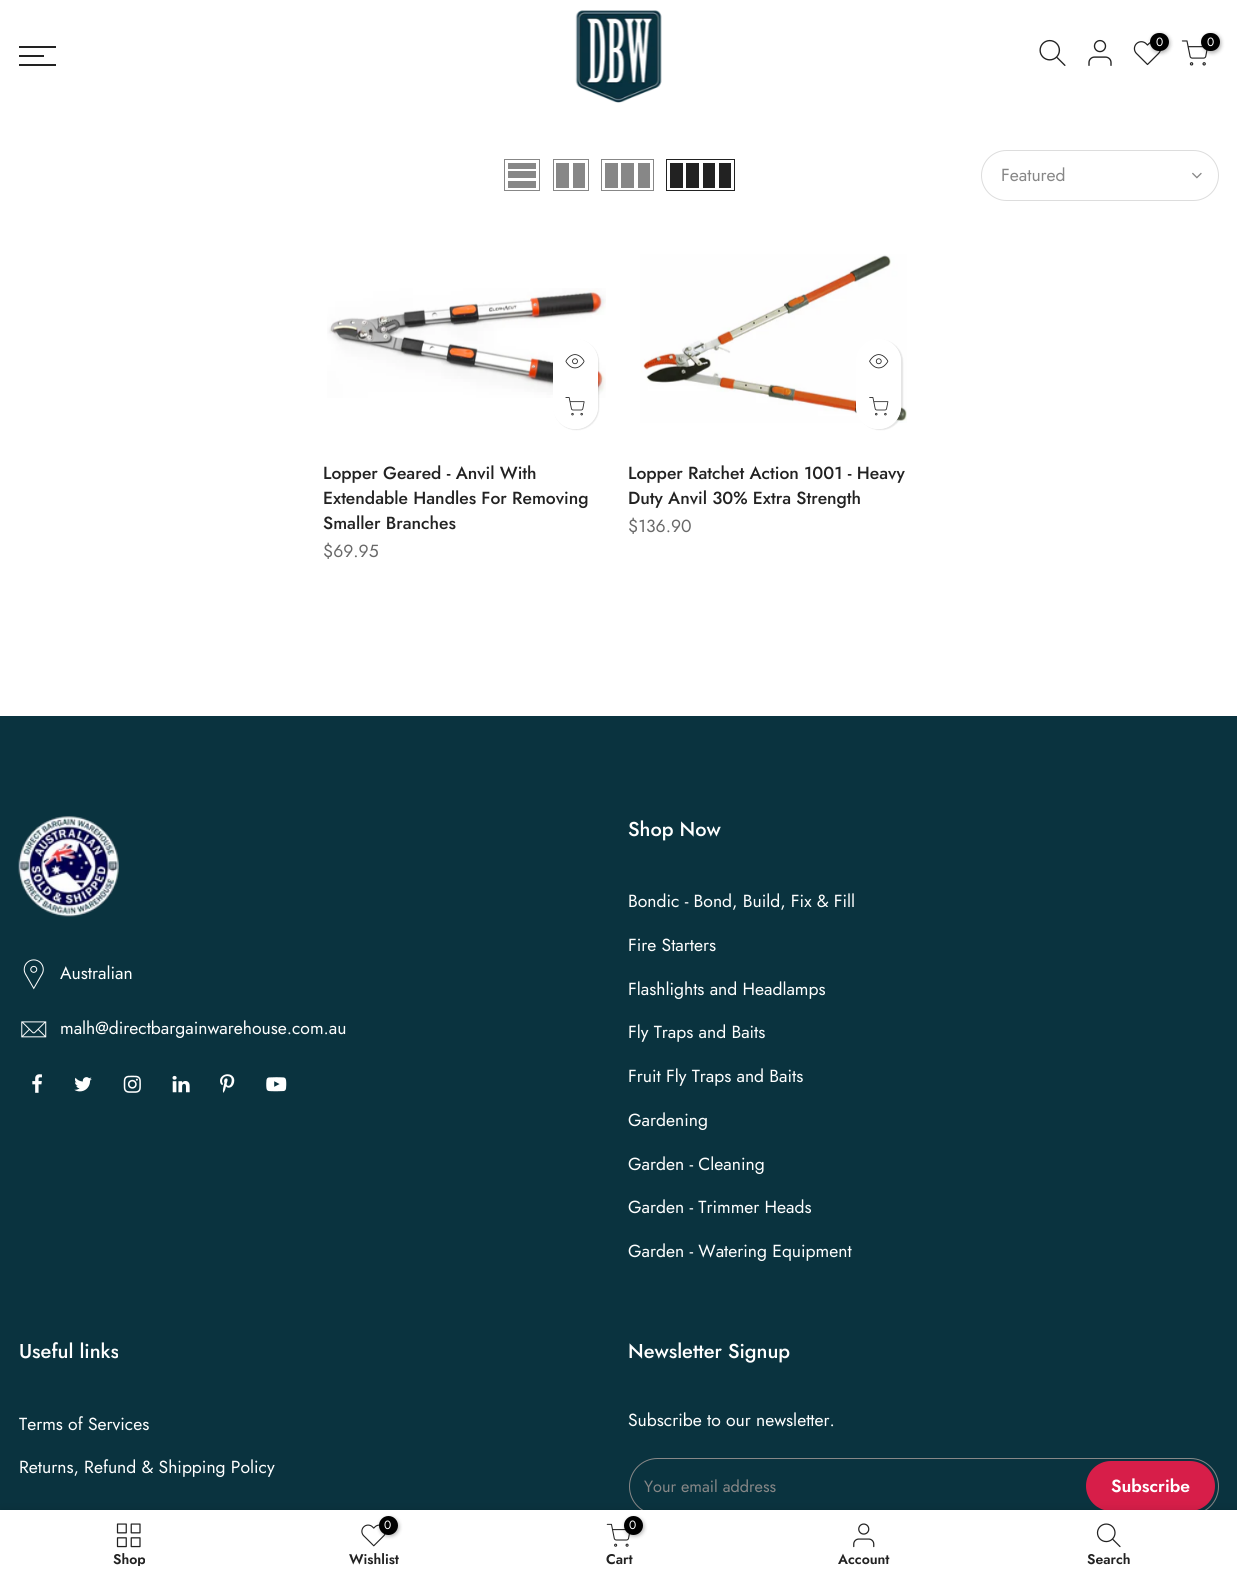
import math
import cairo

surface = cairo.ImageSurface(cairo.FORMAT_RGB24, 1237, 1578)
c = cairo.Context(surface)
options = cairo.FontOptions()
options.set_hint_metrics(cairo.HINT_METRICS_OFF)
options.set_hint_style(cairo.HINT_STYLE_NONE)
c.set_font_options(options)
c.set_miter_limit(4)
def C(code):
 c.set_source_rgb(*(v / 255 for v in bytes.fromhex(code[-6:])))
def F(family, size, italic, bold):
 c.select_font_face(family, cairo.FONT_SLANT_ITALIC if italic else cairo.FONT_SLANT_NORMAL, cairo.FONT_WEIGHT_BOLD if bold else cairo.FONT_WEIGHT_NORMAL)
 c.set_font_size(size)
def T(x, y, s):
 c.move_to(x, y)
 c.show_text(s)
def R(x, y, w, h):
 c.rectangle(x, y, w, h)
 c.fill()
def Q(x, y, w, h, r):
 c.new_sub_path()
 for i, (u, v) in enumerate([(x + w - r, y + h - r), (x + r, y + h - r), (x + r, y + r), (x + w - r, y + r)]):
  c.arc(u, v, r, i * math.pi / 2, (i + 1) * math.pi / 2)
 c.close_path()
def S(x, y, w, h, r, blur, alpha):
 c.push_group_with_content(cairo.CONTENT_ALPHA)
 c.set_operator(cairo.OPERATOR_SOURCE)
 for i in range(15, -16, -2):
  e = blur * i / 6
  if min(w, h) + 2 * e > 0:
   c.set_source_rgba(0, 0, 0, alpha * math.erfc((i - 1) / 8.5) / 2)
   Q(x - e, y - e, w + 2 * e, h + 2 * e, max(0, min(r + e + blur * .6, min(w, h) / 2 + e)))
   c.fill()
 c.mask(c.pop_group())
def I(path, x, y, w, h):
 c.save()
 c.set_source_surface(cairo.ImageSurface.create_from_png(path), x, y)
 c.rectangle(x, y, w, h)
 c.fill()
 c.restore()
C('ffffff')
c.paint()
I('1.png',575,10,87,93)
I('2.png',1039,39,27,27)
I('3.png',1088,39,24,27)
I('4.png',1133,41,28,25)
C('000000')
S(1151,34,19,19,9.5,2,.3)
C('000000')
Q(1150,33,19,18,9)
c.fill()
F('Jost',12,0,0)
C('ffffff')
T(1156,46,'0')
I('5.png',1181,40,27,26)
C('000000')
S(1203,34,18,19,9,2,.3)
C('000000')
Q(1201,33,19,18,9)
c.fill()
C('ffffff')
T(1207,46,'0')
C('222222')
R(19,46,37,2)
R(19,55,25,2)
R(19,64,37,2)
c.rectangle(504.5,159.5,35,31)
C('878787')
c.set_line_width(1)
c.stroke()
R(508,181,28,7)
R(508,171,28,7)
R(508,163,28,6)
c.rectangle(553.5,159.5,35,31)
c.stroke()
R(573,163,12,25)
R(556,163,13,25)
c.rectangle(601.5,159.5,52,31)
c.stroke()
R(638,163,12,25)
R(621,163,13,25)
R(605,163,13,25)
c.rectangle(666.5,159.5,68,31)
C('222222')
c.stroke()
R(719,163,12,25)
R(703,163,12,25)
R(686,163,13,25)
R(670,163,13,25)
Q(981.5,150.5,237,50,25)
C('dddddd')
c.stroke()
F('Jost',17.5,0,0)
C('878787')
T(1001,181,'Featured')
I('6.png',1192,172,10,7)
I('7.png',327,288,279,110)
C('000000')
S(554,340,45,90,22.5,.5,.1)
C('ffffff')
Q(553,339,45,90,22.5)
c.fill()
c.arc(575.5,361.5,22.5,0,2 * math.pi)
c.fill()
I('8.png',565,354,20,15)
c.new_path()
c.move_to(567.5,353.5)
c.curve_to(570,351,573.5,350,577,351)
c.curve_to(589.5,353.5,587.5,372,575,372)
c.curve_to(572,372,569.5,370.5,567.5,369)
c.move_to(567.5,369)
c.curve_to(563.5,364.5,563.5,358,567.5,353.5)
c.set_line_width(1.2)
c.stroke()
c.arc(575.5,406.5,22.5,0,2 * math.pi)
c.fill()
I('9.png',565,397,20,19)
F('Jost Medium',17.5,0,0)
C('222222')
T(323,479,'Lopper Geared - Anvil With')
T(323,504,'Extendable Handles For Removing')
T(323,529,'Smaller Branches')
F('Jost',17.5,0,0)
C('696969')
T(323,557,'$69.95')
I('10.png',640,254,267,169)
C('000000')
S(858,340,45,90,22.5,.5,.1)
C('ffffff')
Q(856,339,45,90,22.5)
c.fill()
c.arc(878.5,361.5,22.5,0,2 * math.pi)
c.fill()
I('11.png',869,354,20,15)
c.new_path()
c.move_to(871,353.5)
c.curve_to(873,352,876,350.5,879,350.5)
c.curve_to(891.5,350.5,893.5,369,881,371.5)
c.curve_to(877.5,372.5,873.5,371.5,871,369)
c.stroke()
c.arc(878.5,406.5,22.5,0,2 * math.pi)
c.fill()
I('12.png',869,397,20,19)
F('Jost Medium',17.5,0,0)
C('222222')
T(628,479,'Lopper Ratchet Action 1001 - Heavy')
T(628,504,'Duty Anvil 30% Extra Strength')
F('Jost',17.5,0,0)
C('696969')
T(628,532,'$136.90')
C('0a333f')
R(0,716,1237,794)
I('13.png',18,816,101,101)
I('14.png',23,959,21,31)
C('ffffff')
T(60,979,'Australian')
I('15.png',21,1021,26,17)
T(60,1034,'malh@directbargainwarehouse.com.au')
I('16.png',32,1074,10,19)
I('17.png',74,1077,18,15)
I('18.png',123,1075,18,18)
I('19.png',172,1075,18,18)
I('20.png',220,1074,15,19)
I('21.png',266,1077,21,15)
F('Jost Medium',20,0,0)
T(628,836,'Shop Now')
F('Jost',17.5,0,0)
T(628,907,'Bondic - Bond, Build, Fix & Fill')
T(628,951,'Fire Starters')
T(628,995,'Flashlights and Headlamps')
T(628,1038,'Fly Traps and Baits')
T(628,1082,'Fruit Fly Traps and Baits')
T(628,1126,'Gardening')
T(628,1170,'Garden - Cleaning')
T(628,1213,'Garden - Trimmer Heads')
T(628,1257,'Garden - Watering Equipment')
F('Jost Medium',20,0,0)
T(19,1358,'Useful links')
F('Jost',17.5,0,0)
T(19,1430,'Terms of Services')
T(19,1473,'Returns, Refund & Shipping Policy')
F('Jost Medium',20,0,0)
T(628,1358,'Newsletter Signup')
F('Jost',17.5,0,0)
T(628,1426,'Subscribe to our newsletter.')
Q(629.5,1458.5,589,56,28)
C('878787')
c.set_line_width(1)
c.stroke()
F('Jost',16.25,0,0)
T(644,1492,'Your email address')
C('d71e49')
Q(1086,1461,129,50,25)
c.fill()
F('Jost SemiBold',17.5,0,0)
C('ffffff')
T(1111,1492,'Subscribe')
C('000000')
S(0,1510,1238,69,0,5.5,.12)
C('ffffff')
R(0,1510,1237,68)
I('22.png',116,1523,25,25)
c.save()
c.rectangle(19,1553,220,13)
c.clip()
F('Jost SemiBold',14,0,0)
C('222222')
T(113,1564,'Shop')
c.restore()
I('23.png',361,1524,25,23)
C('000000')
S(380,1518,19,18,9,2,.3)
C('000000')
c.arc(388.5,1525.5,9.5,0,2 * math.pi)
c.fill()
F('Jost',12,0,0)
C('ffffff')
T(384,1529,'0')
F('Jost SemiBold',14,0,0)
C('222222')
T(349,1564,'Wishlist')
I('24.png',606,1523,24,24)
C('000000')
S(625,1518,19,18,9,2,.3)
C('000000')
c.arc(633.5,1525.5,9.5,0,2 * math.pi)
c.fill()
F('Jost',12,0,0)
C('ffffff')
T(629,1529,'0')
F('Jost SemiBold',14,0,0)
C('222222')
T(606,1564,'Cart')
I('25.png',853,1523,22,25)
T(838,1564,'Account')
I('26.png',1096,1523,25,25)
T(1087,1564,'Search')
surface.write_to_png('o.png')
